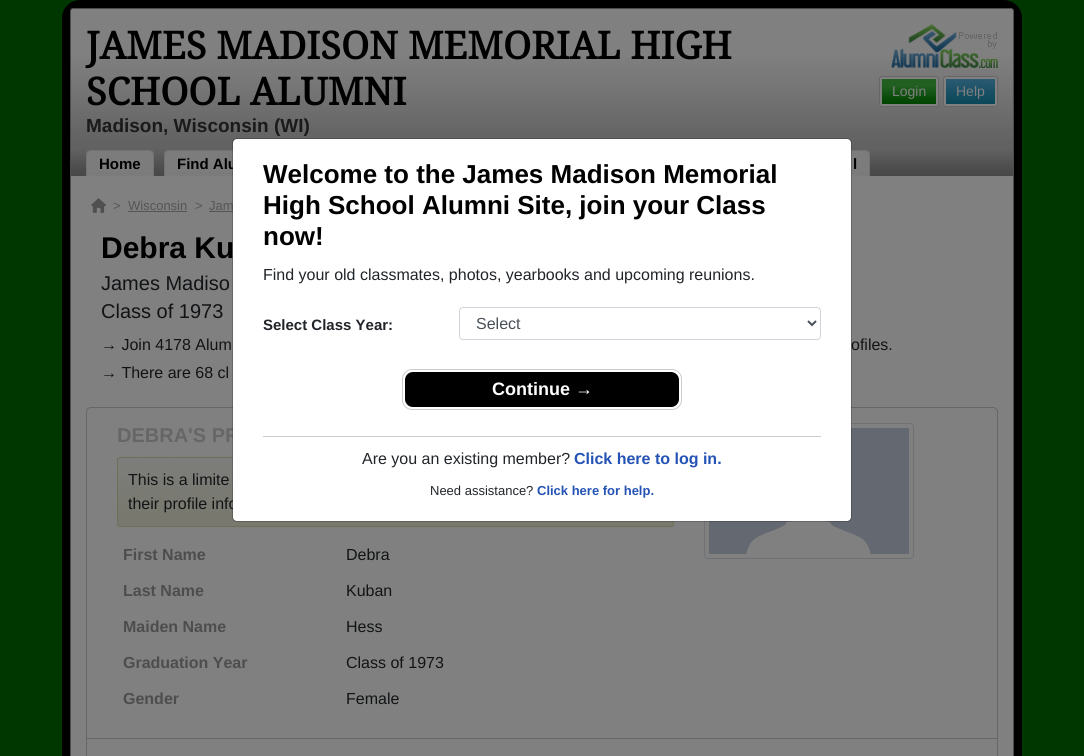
import math
import cairo

surface = cairo.ImageSurface(cairo.FORMAT_RGB24, 1084, 756)
c = cairo.Context(surface)
options = cairo.FontOptions()
options.set_hint_metrics(cairo.HINT_METRICS_OFF)
options.set_hint_style(cairo.HINT_STYLE_NONE)
c.set_font_options(options)
c.set_miter_limit(4)
def C(code):
 c.set_source_rgb(*(v / 255 for v in bytes.fromhex(code[-6:])))
def F(family, size, italic, bold):
 c.select_font_face(family, cairo.FONT_SLANT_ITALIC if italic else cairo.FONT_SLANT_NORMAL, cairo.FONT_WEIGHT_BOLD if bold else cairo.FONT_WEIGHT_NORMAL)
 c.set_font_size(size)
def T(x, y, s):
 c.move_to(x, y)
 c.show_text(s)
def R(x, y, w, h):
 c.rectangle(x, y, w, h)
 c.fill()
def Q(x, y, w, h, r):
 c.new_sub_path()
 for i, (u, v) in enumerate([(x + w - r, y + h - r), (x + r, y + h - r), (x + r, y + r), (x + w - r, y + r)]):
  c.arc(u, v, r, i * math.pi / 2, (i + 1) * math.pi / 2)
 c.close_path()
def I(path, x, y, w, h):
 c.save()
 c.set_source_surface(cairo.ImageSurface.create_from_png(path), x, y)
 c.rectangle(x, y, w, h)
 c.fill()
 c.restore()
C('003700')
c.paint()
Q(66,4,952,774,14)
C('000000')
c.set_line_width(8)
c.stroke()
C('808080')
Q(70.5,8.5,943,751,2.5)
c.fill_preserve()
C('4d4d4d')
c.set_line_width(1)
c.stroke()
I('1.png',71,57,942,119)
F('Droid Serif',38,0,1)
C('000000')
T(86,59,'JAMES MADISON MEMORIAL HIGH')
T(86,105,'SCHOOL ALUMNI')
F('Liberation Sans',19,0,1)
C('1a1a1a')
T(86,132,'Madison, Wisconsin (WI)')
I('2.png',891,24,107,44)
C('808080')
Q(879.5,76.5,59,30,2.5)
c.fill_preserve()
C('666666')
c.stroke()
C('215f21')
R(882,79,54,8)
I('3.png',882,87,54,17)
F('Liberation Sans',14,0,0)
C('808080')
T(892,96,'Login')
Q(943.5,76.5,54,30,2.5)
c.fill_preserve()
C('666666')
c.stroke()
I('4.png',946,79,49,25)
C('808080')
T(956,96,'Help')
I('5.png',86,150,68,26)
C('727272')
c.set_fill_rule(cairo.FILL_RULE_EVEN_ODD)
c.new_path()
c.move_to(91,150)
c.line_to(149,150)
c.curve_to(152,150,154,152,154,155)
c.line_to(154,176)
c.line_to(86,176)
c.line_to(86,155)
c.curve_to(86,152,88,150,91,150)
c.close_path()
c.move_to(91,151)
c.line_to(149,151)
c.curve_to(151,151,153,153,153,155)
c.line_to(153,176)
c.line_to(87,176)
c.line_to(87,155)
c.curve_to(87,153,89,151,91,151)
c.close_path()
c.fill()
F('Liberation Sans',15,0,1)
C('000000')
T(99,169,'Home')
I('6.png',164,150,69,26)
C('727272')
c.new_path()
c.move_to(169,150)
c.line_to(271,150)
c.curve_to(274,150,276,152,276,155)
c.line_to(276,176)
c.line_to(164,176)
c.line_to(164,155)
c.curve_to(164,152,166,150,169,150)
c.close_path()
c.move_to(169,151)
c.line_to(271,151)
c.curve_to(273,151,275,153,275,155)
c.line_to(275,176)
c.line_to(165,176)
c.line_to(165,155)
c.curve_to(165,153,167,151,169,151)
c.close_path()
c.fill()
C('000000')
T(177,169,'Find Alu')
I('7.png',851,150,19,26)
C('727272')
c.new_path()
c.move_to(793,150)
c.line_to(865,150)
c.curve_to(868,150,870,152,870,155)
c.line_to(870,176)
c.line_to(788,176)
c.line_to(788,155)
c.curve_to(788,152,790,150,793,150)
c.close_path()
c.move_to(793,151)
c.line_to(865,151)
c.curve_to(867,151,869,153,869,155)
c.line_to(869,176)
c.line_to(789,176)
c.line_to(789,155)
c.curve_to(789,153,791,151,793,151)
c.close_path()
c.fill()
C('000000')
T(853,169,'l')
I('8.png',91,198,15,15)
F('Liberation Sans',13,0,0)
C('555555')
T(113,210,'>')
T(128,210,'Wisconsin')
R(128,211,59,1)
T(195,210,'>')
T(209,210,'Jam')
R(209,211,24,1)
F('Liberation Sans',30,0,1)
C('000000')
T(101,258,'Debra Ku')
F('Liberation Sans',20,0,0)
C('111315')
T(101,290,'James Madiso')
T(101,318,'Class of 1973')
F('Liberation Sans',16,0,0)
T(101,350,'→ Join 4178 Alum')
T(851,350,'ofiles.')
T(101,378,'→ There are 68 cl')
Q(86.5,407.5,911,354,4.5)
C('666666')
c.stroke()
F('Liberation Sans',20,0,1)
T(117,442,'DEBRA\'S PR')
C('7d7d7d')
Q(117,457,557,70,3)
c.fill()
I('9.png',117,462,557,64)
Q(117.5,457.5,556,69,2.5)
C('6f6f57')
c.stroke()
F('Liberation Sans',16,0,0)
C('111315')
T(128,485,'This is a limite')
T(128,509,'their profile info')
F('Liberation Sans',16,0,1)
C('4d4d4d')
T(123,560,'First Name')
F('Liberation Sans',16,0,0)
C('111315')
T(346,560,'Debra')
F('Liberation Sans',16,0,1)
C('4d4d4d')
T(123,596,'Last Name')
F('Liberation Sans',16,0,0)
C('111315')
T(346,596,'Kuban')
F('Liberation Sans',16,0,1)
C('4d4d4d')
T(123,632,'Maiden Name')
F('Liberation Sans',16,0,0)
C('111315')
T(346,632,'Hess')
F('Liberation Sans',16,0,1)
C('4d4d4d')
T(123,668,'Graduation Year')
F('Liberation Sans',16,0,0)
C('111315')
T(346,668,'Class of 1973')
F('Liberation Sans',16,0,1)
C('4d4d4d')
T(123,704,'Gender')
F('Liberation Sans',16,0,0)
C('111315')
T(346,704,'Female')
Q(704.5,423.5,209,135,3.5)
C('6f7173')
c.stroke()
I('10.png',709,428,200,126)
C('666666')
R(87,738,910,1)
C('ffffff')
Q(233,139,618,382,4)
c.fill()
Q(232.5,138.5,619,383,4.5)
c.set_source_rgba(0,0,0,0.2)
c.stroke()
F('Liberation Sans',26,0,1)
C('000000')
T(263,183,'Welcome to the James Madison Memorial')
T(263,214,'High School Alumni Site, join your Class')
T(263,245,'now!')
F('Liberation Sans',16,0,0)
C('212529')
T(263,280,'Find your old classmates, photos, yearbooks and upcoming reunions.')
F('Liberation Sans',15,0,1)
T(263,330,'Select Class Year:')
Q(459.5,307.5,361,32,3.5)
C('ced4da')
c.stroke()
c.new_path()
c.move_to(808,321)
c.line_to(812,325)
c.line_to(816,321)
C('495057')
c.set_line_width(2)
c.stroke()
F('Liberation Sans',16,0,0)
T(476,329,'Select')
Q(402.5,369.5,279,40,9.5)
C('cccccc')
c.set_line_width(1)
c.stroke()
C('000000')
Q(405,372,274,35,8)
c.fill()
I('11.png',405,400,274,7)
F('Liberation Sans',18,0,1)
C('ffffff')
T(492,395,'Continue →')
C('cccccc')
R(263,436,558,1)
F('Liberation Sans',16,0,0)
C('212529')
T(362,464,'Are you an existing member?')
F('Liberation Sans',16,0,1)
C('2553b5')
T(574,464,'Click here to log in.')
F('Liberation Sans',13,0,0)
C('212529')
T(430,495,'Need assistance?')
F('Liberation Sans',13,0,1)
C('2553b5')
T(537,495,'Click here for help.')
surface.write_to_png('o.png')
